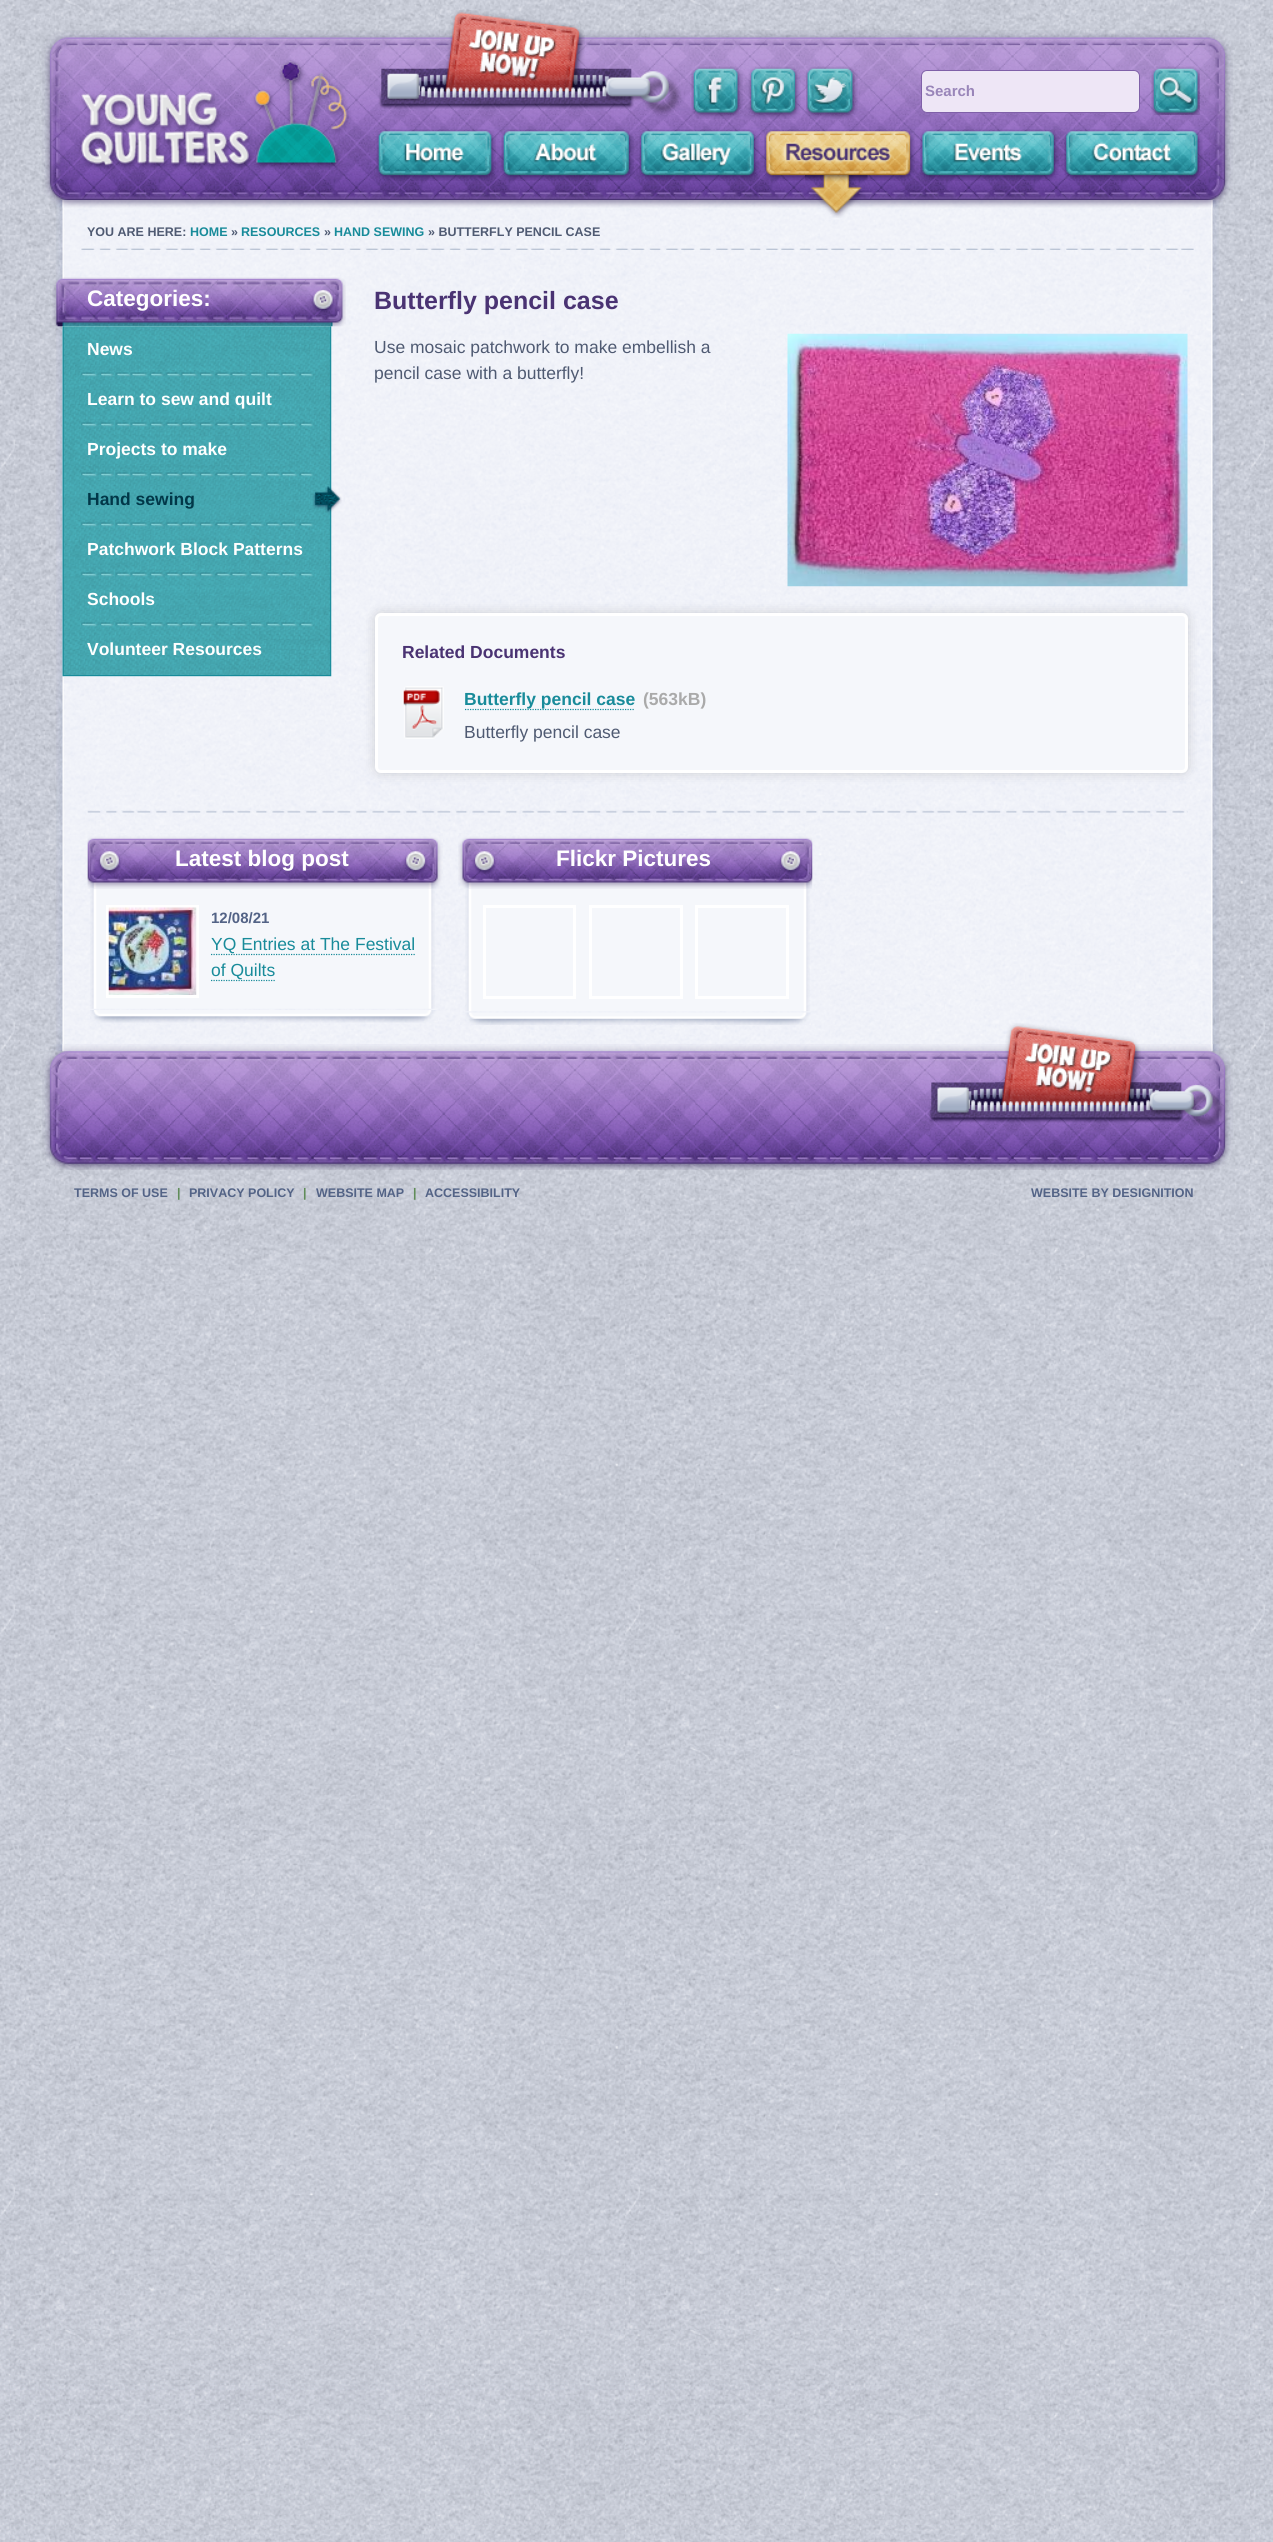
import math
import cairo

surface = cairo.ImageSurface(cairo.FORMAT_RGB24, 1273, 2542)
c = cairo.Context(surface)
options = cairo.FontOptions()
options.set_hint_metrics(cairo.HINT_METRICS_OFF)
options.set_hint_style(cairo.HINT_STYLE_NONE)
c.set_font_options(options)
c.set_miter_limit(4)
def C(code):
 c.set_source_rgb(*(v / 255 for v in bytes.fromhex(code[-6:])))
def F(family, size, italic, bold):
 c.select_font_face(family, cairo.FONT_SLANT_ITALIC if italic else cairo.FONT_SLANT_NORMAL, cairo.FONT_WEIGHT_BOLD if bold else cairo.FONT_WEIGHT_NORMAL)
 c.set_font_size(size)
def T(x, y, s):
 c.move_to(x, y)
 c.show_text(s)
def R(x, y, w, h):
 c.rectangle(x, y, w, h)
 c.fill()
def Q(x, y, w, h, r):
 c.new_sub_path()
 for i, (u, v) in enumerate([(x + w - r, y + h - r), (x + r, y + h - r), (x + r, y + r), (x + w - r, y + r)]):
  c.arc(u, v, r, i * math.pi / 2, (i + 1) * math.pi / 2)
 c.close_path()
def S(x, y, w, h, r, blur, alpha):
 c.push_group_with_content(cairo.CONTENT_ALPHA)
 c.set_operator(cairo.OPERATOR_SOURCE)
 for i in range(15, -16, -2):
  e = blur * i / 6
  if min(w, h) + 2 * e > 0:
   c.set_source_rgba(0, 0, 0, alpha * math.erfc((i - 1) / 8.5) / 2)
   Q(x - e, y - e, w + 2 * e, h + 2 * e, max(0, min(r + e + blur * .6, min(w, h) / 2 + e)))
   c.fill()
 c.mask(c.pop_group())
def I(path, x, y, w, h):
 c.save()
 c.set_source_surface(cairo.ImageSurface.create_from_png(path), x, y)
 c.rectangle(x, y, w, h)
 c.fill()
 c.restore()
C('ffffff')
c.paint()
I('1.png',0,0,1273,2542)
I('2.png',42,30,1191,170)
I('3.png',438,10,147,82)
I('4.png',691,66,52,53)
I('5.png',748,66,53,53)
I('6.png',806,66,52,53)
I('7.png',376,129,120,52)
I('8.png',501,129,133,52)
I('9.png',639,129,120,52)
I('10.png',764,129,151,52)
I('15.png',56,200,1163,852)
I('16.png',51,200,1173,8)
I('11.png',805,175,63,43)
I('12.png',920,129,139,52)
I('13.png',1064,129,139,52)
C('eee6f6')
Q(921.5,70.5,218,42,5.5)
c.fill_preserve()
C('7f60a8')
c.set_line_width(1)
c.stroke()
F('Liberation Sans',15,0,1)
C('9985b9')
T(925,96,'Search')
I('14.png',1151,66,49,49)
I('17.png',52,1044,1172,8)
I('18.png',81,248,1113,2)
F('Liberation Sans',12.5,0,1)
C('4f5a72')
T(87,236,'YOU ARE HERE:')
C('188b9a')
T(190,236,'HOME')
C('4f5a72')
T(231,236,'»')
C('188b9a')
T(241,236,'RESOURCES')
C('4f5a72')
T(324,236,'»')
C('188b9a')
T(334,236,'HAND SEWING')
C('4f5a72')
T(428,236,'» BUTTERFLY PENCIL CASE')
I('19.png',52,277,294,50)
F('Liberation Sans',22.5,0,1)
C('ffffff')
T(87,306,'Categories:')
I('20.png',62,326,270,351)
C('188b9a')
R(63,675,268,1)
I('21.png',81,372,232,5)
F('Liberation Sans',17.5,0,1)
C('ffffff')
T(87,355,'News')
I('22.png',81,422,232,5)
T(87,405,'Learn to sew and quilt')
I('23.png',81,472,232,5)
T(87,455,'Projects to make')
I('24.png',81,522,232,5)
C('013748')
T(87,505,'Hand sewing')
I('25.png',312,486,30,28)
I('26.png',81,572,232,5)
C('ffffff')
T(87,555,'Patchwork Block Patterns')
I('27.png',81,622,232,5)
T(87,605,'Schools')
T(87,655,'Volunteer Resources')
F('Liberation Sans',25,0,1)
C('4a3373')
T(374,309,'Butterfly pencil case')
F('Liberation Sans',17.5,0,0)
C('4f5a72')
T(374,353,'Use mosaic patchwork to make embellish a')
T(374,379,'pencil case with a butterfly!')
I('28.png',787,333,401,254)
C('000000')
S(375,613,813,160,6,6,.15)
C('f5f7fb')
Q(376.5,614.5,810,157,4.5)
c.fill_preserve()
C('ffffff')
c.set_line_width(3)
c.stroke()
F('Liberation Sans',17.5,0,1)
C('4a3373')
T(402,658,'Related Documents')
I('29.png',402,686,42,53)
c.new_path()
c.move_to(465,709.5)
c.line_to(635,709.5)
C('188b9a')
c.set_line_width(1.2)
c.set_dash([1.25,1.25])
c.stroke()
T(464,705,'Butterfly pencil case')
C('aaaaaa')
T(643,705,'(563kB)')
F('Liberation Sans',17.5,0,0)
C('4f5a72')
T(464,738,'Butterfly pencil case')
I('30.png',87,810,1101,3)
I('31.png',90,1010,348,13)
I('32.png',87,833,356,56)
F('Liberation Sans',22.5,0,1)
C('ffffff')
T(175,866,'Latest blog post')
I('33.png',90,889,345,120)
c.rectangle(107.5,906.5,90,90)
c.set_line_width(3)
c.set_dash([])
c.stroke()
I('34.png',108,907,89,88)
F('Liberation Sans',15,0,1)
C('536386')
T(211,923,'12/08/21')
c.new_path()
c.move_to(211,954.5)
c.line_to(415,954.5)
C('188b9a')
c.set_line_width(1.2)
c.set_dash([1.25,1.25])
c.stroke()
F('Liberation Sans',17.5,0,0)
T(211,950,'YQ Entries at The Festival')
c.new_path()
c.move_to(211,980.5)
c.line_to(275,980.5)
c.stroke()
T(211,976,'of Quilts')
I('35.png',460,1012,351,13)
I('36.png',458,833,355,56)
F('Liberation Sans',22.5,0,1)
C('ffffff')
T(556,866,'Flickr Pictures')
I('37.png',465,889,345,123)
c.rectangle(484.5,906.5,90,91)
c.set_line_width(3)
c.set_dash([])
c.stroke()
c.rectangle(590.5,906.5,91,91)
c.stroke()
c.rectangle(696.5,906.5,91,91)
c.stroke()
I('38.png',42,1051,1191,119)
I('39.png',995,1023,147,82)
F('Liberation Sans',12.5,0,1)
C('536386')
T(74,1197,'TERMS OF USE')
C('608d59')
T(177,1197,'|')
C('536386')
T(189,1197,'PRIVACY POLICY')
C('608d59')
T(303,1197,'|')
C('536386')
T(316,1197,'WEBSITE MAP')
C('608d59')
T(413,1197,'|')
C('536386')
T(425,1197,'ACCESSIBILITY')
T(1031,1197,'WEBSITE BY DESIGNITION')
surface.write_to_png('o.png')
